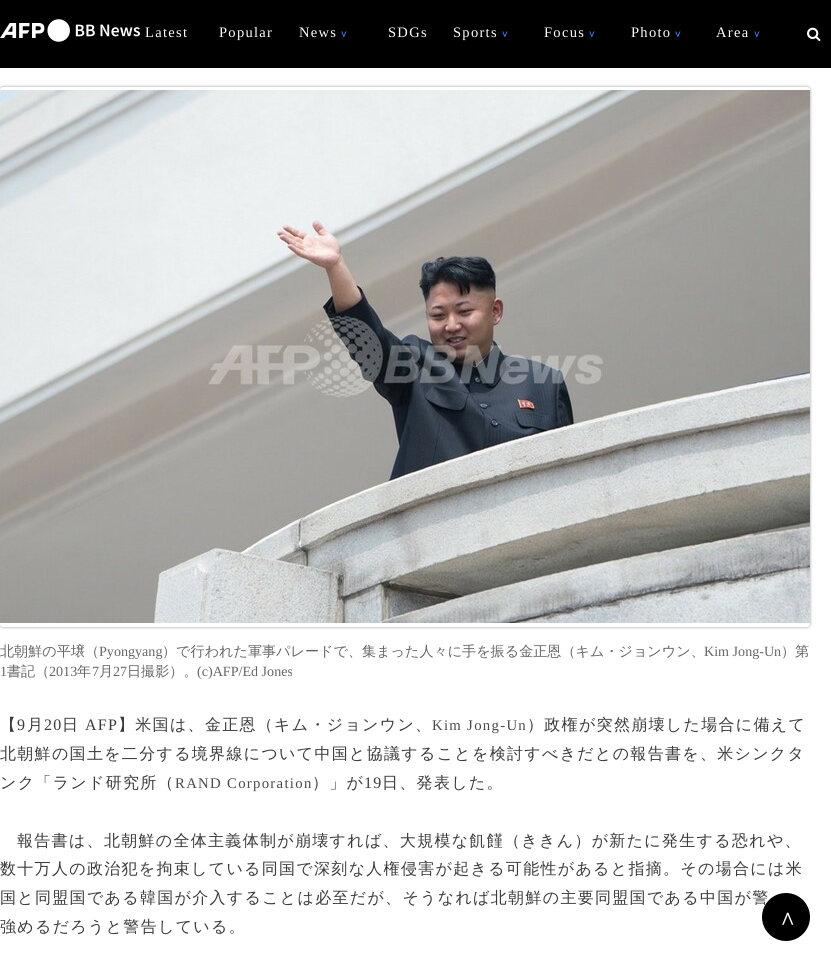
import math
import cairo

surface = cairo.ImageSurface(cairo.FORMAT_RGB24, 831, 962)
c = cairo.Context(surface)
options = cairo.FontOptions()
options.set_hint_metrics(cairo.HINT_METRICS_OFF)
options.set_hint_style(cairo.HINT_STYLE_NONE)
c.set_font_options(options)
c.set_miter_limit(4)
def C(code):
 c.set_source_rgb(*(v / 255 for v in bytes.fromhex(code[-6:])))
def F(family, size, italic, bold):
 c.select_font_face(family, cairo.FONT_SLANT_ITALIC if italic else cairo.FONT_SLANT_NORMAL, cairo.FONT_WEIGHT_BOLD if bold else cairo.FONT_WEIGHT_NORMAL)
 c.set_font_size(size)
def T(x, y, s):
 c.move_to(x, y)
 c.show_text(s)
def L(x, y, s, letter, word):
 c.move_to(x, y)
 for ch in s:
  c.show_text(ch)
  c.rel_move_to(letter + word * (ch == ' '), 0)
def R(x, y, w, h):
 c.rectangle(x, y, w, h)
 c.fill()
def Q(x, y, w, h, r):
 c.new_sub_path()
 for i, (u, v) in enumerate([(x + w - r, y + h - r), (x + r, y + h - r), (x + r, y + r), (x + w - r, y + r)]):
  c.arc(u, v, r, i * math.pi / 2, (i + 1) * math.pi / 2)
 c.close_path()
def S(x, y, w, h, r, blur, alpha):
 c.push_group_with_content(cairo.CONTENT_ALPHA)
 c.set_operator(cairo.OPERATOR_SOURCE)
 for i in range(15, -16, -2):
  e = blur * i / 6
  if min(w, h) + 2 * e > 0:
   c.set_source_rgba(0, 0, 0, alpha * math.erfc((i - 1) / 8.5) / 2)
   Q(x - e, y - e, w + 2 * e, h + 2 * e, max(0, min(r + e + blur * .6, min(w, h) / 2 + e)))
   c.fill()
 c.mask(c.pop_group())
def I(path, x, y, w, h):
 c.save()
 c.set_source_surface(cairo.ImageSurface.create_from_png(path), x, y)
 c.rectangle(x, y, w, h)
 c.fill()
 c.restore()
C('ffffff')
c.paint()
C('000000')
R(0,0,831,68)
I('1.png',0,19,140,23)
F('Liberation Serif',14.5,0,0)
C('ffffff')
L(145,37,'Latest',1.3,0)
L(219,37,'Popular',1.3,0)
L(299,37,'News',1.3,0)
F('WenQuanYi Zen Hei',9,0,1)
C('4781ff')
L(340,37,'∨',6,0)
F('Liberation Serif',14.5,0,0)
C('ffffff')
L(388,37,'SDGs',1.3,0)
L(453,37,'Sports',1.3,0)
F('WenQuanYi Zen Hei',9,0,1)
C('4781ff')
L(501,37,'∨',6,0)
F('Liberation Serif',14.5,0,0)
C('ffffff')
L(544,37,'Focus',1.3,0)
F('WenQuanYi Zen Hei',9,0,1)
C('4781ff')
L(588,37,'∨',6,0)
F('Liberation Serif',14.5,0,0)
C('ffffff')
L(631,37,'Photo',1.3,0)
F('WenQuanYi Zen Hei',9,0,1)
C('4781ff')
L(674,37,'∨',6,0)
F('Liberation Serif',14.5,0,0)
C('ffffff')
L(716,37,'Area',1.3,0)
F('WenQuanYi Zen Hei',9,0,1)
C('4781ff')
L(753,37,'∨',6,0)
I('2.png',807,27,14,14)
C('000000')
S(0,87,810,540,3,1.5,.4)
C('ffffff')
Q(0,87,810,540,3)
c.fill()
I('3.png',0,90,810,533)
F('WenQuanYi Zen Hei Medium',14.1,0,0)
C('666666')
T(0,656,'北朝鮮の平壌（')
F('Liberation Serif',14.1,0,0)
T(99,656,'Pyongyang')
F('WenQuanYi Zen Hei Medium',14.1,0,0)
T(162,656,'）で行われた軍事パレードで、集まった人々に手を振る金正恩（キム・ジョンウン、')
F('Liberation Serif',14.1,0,0)
T(704,656,'Kim Jong-Un')
F('WenQuanYi Zen Hei Medium',14.1,0,0)
T(781,656,'）第')
F('Liberation Serif',14.1,0,0)
T(0,676,'1')
F('WenQuanYi Zen Hei Medium',14.1,0,0)
T(7,676,'書記（')
F('Liberation Serif',14.1,0,0)
T(49,676,'2013')
F('WenQuanYi Zen Hei Medium',14.1,0,0)
T(77,676,'年')
F('Liberation Serif',14.1,0,0)
T(92,676,'7')
F('WenQuanYi Zen Hei Medium',14.1,0,0)
T(99,676,'月')
F('Liberation Serif',14.1,0,0)
T(113,676,'27')
F('WenQuanYi Zen Hei Medium',14.1,0,0)
T(127,676,'日撮影）。')
F('Liberation Serif',14.1,0,0)
T(197,676,'(c)AFP/Ed Jones')
F('WenQuanYi Zen Hei Medium',16,0,0)
C('3b3b3b')
L(0,730,'【',1.3,0)
F('Liberation Serif',16,0,0)
L(17,730,'9',1.3,0)
F('WenQuanYi Zen Hei Medium',16,0,0)
L(27,730,'月',1.3,0)
F('Liberation Serif',16,0,0)
L(44,730,'20',1.3,0)
F('WenQuanYi Zen Hei Medium',16,0,0)
L(62,730,'日',1.3,0)
F('Liberation Serif',16,0,0)
L(85,730,'AFP',1.3,0)
F('WenQuanYi Zen Hei Medium',16,0,0)
L(118,730,'】米国は、金正恩（キム・ジョンウン、',1.3,0)
F('Liberation Serif',14.75,0,0)
C('494949')
L(432,730,'Kim Jong-Un',1.3,0)
F('WenQuanYi Zen Hei Medium',16,0,0)
C('3b3b3b')
L(527,730,'）政権が突然崩壊した場合に備えて',1.3,0)
L(0,759,'北朝鮮の国土を二分する境界線について中国と協議することを検討すべきだとの報告書を、米シンクタ',1.3,0)
L(0,788,'ンク「ランド研究所（',1.3,0)
F('Liberation Serif',14.75,0,0)
C('494949')
L(175,788,'RAND Corporation',1.3,0)
F('WenQuanYi Zen Hei Medium',16,0,0)
C('3b3b3b')
L(312,788,'）」が',1.3,0)
F('Liberation Serif',16,0,0)
L(364,788,'19',1.3,0)
F('WenQuanYi Zen Hei Medium',16,0,0)
L(382,788,'日、発表した。',1.3,0)
L(17,846,'報告書は、北朝鮮の全体主義体制が崩壊すれば、大規模な飢饉（ききん）が新たに発生する恐れや、',1.3,0)
L(0,874,'数十万人の政治犯を拘束している同国で深刻な人権侵害が起きる可能性があると指摘。その場合には米',1.3,0)
L(0,903,'国と同盟国である韓国が介入することは必至だが、そうなれば北朝鮮の主要同盟国である中国が警',1.3,0)
L(0,932,'強めるだろうと警告している。',1.3,0)
C('000000')
c.new_path()
c.arc(786,917,23,0,2 * math.pi)
c.fill_preserve()
c.stroke()
F('WenQuanYi Zen Hei Medium',21,0,0)
C('ffffff')
T(779,925,'∧')
surface.write_to_png('o.png')
